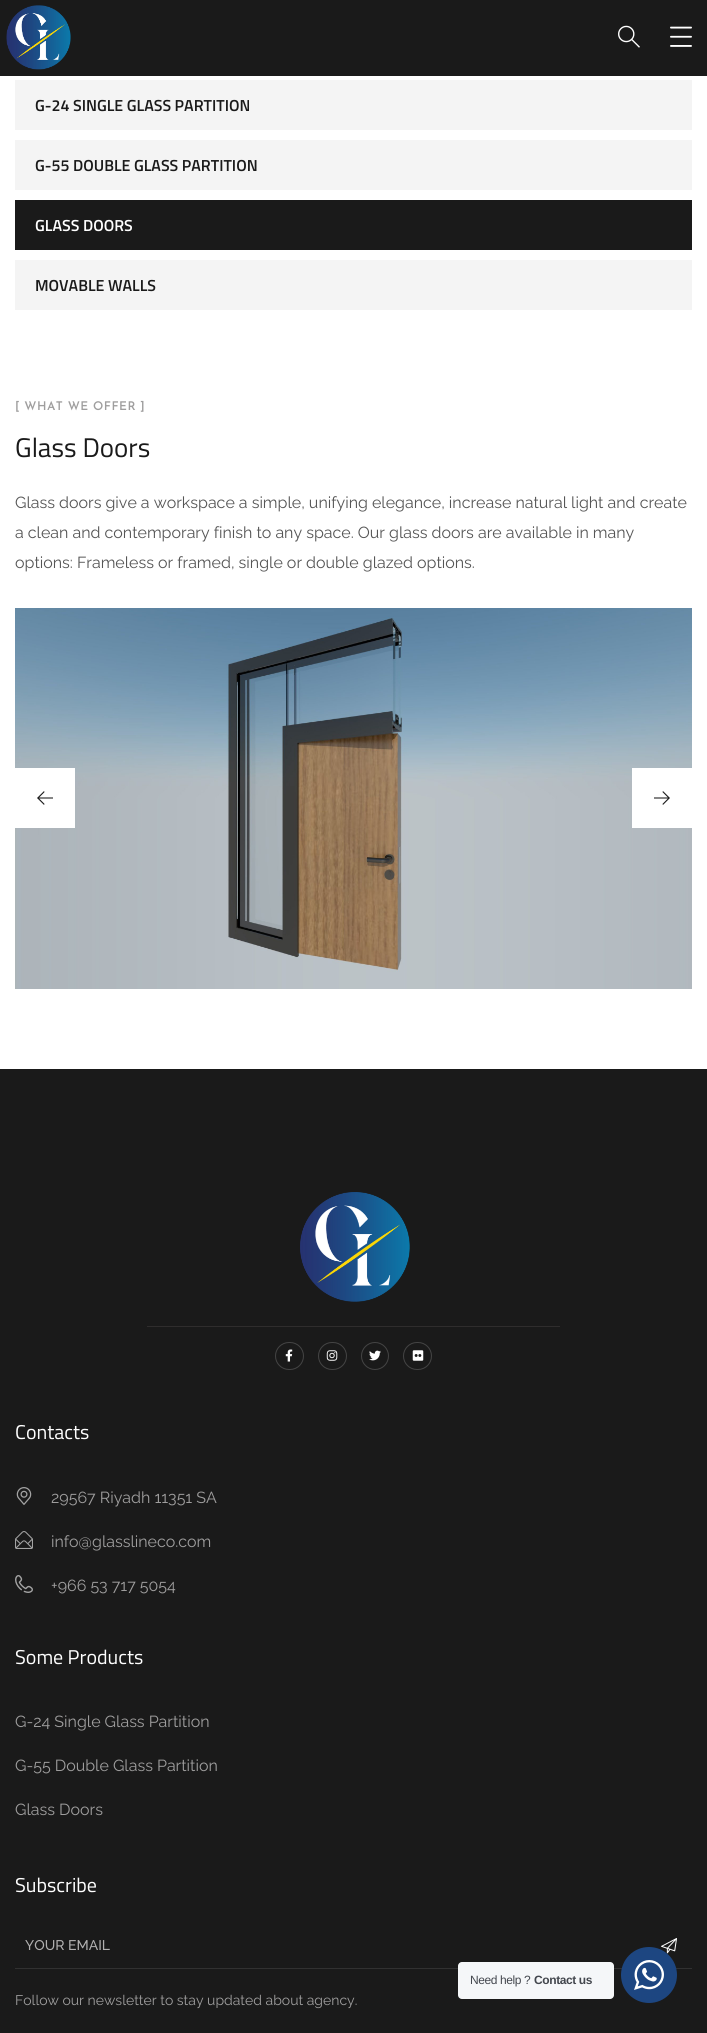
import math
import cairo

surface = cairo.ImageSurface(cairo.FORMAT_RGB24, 707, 2033)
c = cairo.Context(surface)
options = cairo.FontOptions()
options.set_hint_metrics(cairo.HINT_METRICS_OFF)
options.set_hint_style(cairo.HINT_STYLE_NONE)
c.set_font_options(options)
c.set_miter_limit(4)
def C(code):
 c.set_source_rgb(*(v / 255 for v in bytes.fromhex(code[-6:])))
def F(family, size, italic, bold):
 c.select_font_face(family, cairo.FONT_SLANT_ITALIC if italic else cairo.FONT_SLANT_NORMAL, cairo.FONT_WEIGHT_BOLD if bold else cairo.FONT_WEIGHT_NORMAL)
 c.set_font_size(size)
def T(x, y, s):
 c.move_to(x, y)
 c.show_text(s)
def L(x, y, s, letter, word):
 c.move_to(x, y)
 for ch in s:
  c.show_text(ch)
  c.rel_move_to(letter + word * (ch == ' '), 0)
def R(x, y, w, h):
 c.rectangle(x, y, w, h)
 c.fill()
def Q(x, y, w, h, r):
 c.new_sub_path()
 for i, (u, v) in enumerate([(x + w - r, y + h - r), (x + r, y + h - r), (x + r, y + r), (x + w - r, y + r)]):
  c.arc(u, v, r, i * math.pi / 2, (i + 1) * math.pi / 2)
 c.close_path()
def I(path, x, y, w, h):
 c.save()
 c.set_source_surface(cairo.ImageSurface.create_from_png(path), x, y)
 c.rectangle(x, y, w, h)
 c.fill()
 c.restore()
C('ffffff')
c.paint()
C('1a1a1a')
R(0,0,707,76)
I('1.png',6,5,65,65)
I('2.png',618,25,22,23)
I('3.png',670,26,22,21)
C('f4f4f4')
R(15,80,677,50)
F('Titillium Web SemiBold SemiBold',16,0,0)
C('1a1a1a')
T(35,111,'G-24 SINGLE GLASS PARTITION')
C('f4f4f4')
R(15,140,677,50)
C('1a1a1a')
T(35,171,'G-55 DOUBLE GLASS PARTITION')
R(15,200,677,50)
C('ffffff')
T(35,231,'GLASS DOORS')
C('f4f4f4')
R(15,260,677,50)
C('1a1a1a')
T(35,291,'MOVABLE WALLS')
F('Josefin Sans SemiBold',12,0,0)
C('9f9e9e')
L(15,410,'[ WHAT WE OFFER ]',.5,0)
F('Titillium Web',27,0,0)
C('1a1a1a')
T(15,457,'Glass Doors')
F('Raleway',16,0,0)
C('555555')
T(15,508,'Glass doors give a workspace a simple, unifying elegance, increase natural light and create')
T(15,538,'a clean and contemporary finish to any space. Our glass doors are available in many')
T(15,568,'options: Frameless or framed, single or double glazed options.')
I('4.png',15,608,677,381)
C('ffffff')
R(15,768,60,60)
I('5.png',37,791,16,14)
R(632,768,60,60)
I('6.png',654,791,16,14)
C('1a1a1a')
R(0,1069,707,964)
I('7.png',300,1192,110,110)
C('2f2d2d')
R(147,1326,413,1)
Q(275.5,1342.5,28,27,13.5)
C('444444')
c.set_line_width(1)
c.stroke()
I('8.png',285,1349,8,13)
Q(318.5,1342.5,28,27,13.5)
c.stroke()
I('9.png',326,1350,12,11)
c.arc(375,1356,13.5,0,2 * math.pi)
c.stroke()
I('10.png',369,1350,12,11)
Q(403.5,1342.5,28,27,13.5)
c.stroke()
I('11.png',412,1350,12,11)
F('Titillium Web',20,0,0)
C('ffffff')
T(15,1439,'Contacts')
I('12.png',16,1487,16,18)
F('Raleway',16,0,0)
C('9f9e9e')
T(51,1503,'29567 Riyadh 11351 SA')
I('13.png',15,1531,18,18)
T(51,1547,'info@glasslineco.com')
I('14.png',15,1575,18,18)
T(51,1591,'+966 53 717 5054')
F('Titillium Web',20,0,0)
C('ffffff')
T(15,1664,'Some Products')
F('Raleway',16,0,0)
C('9f9e9e')
T(15,1727,'G-24 Single Glass Partition')
T(15,1771,'G-55 Double Glass Partition')
T(15,1815,'Glass Doors')
F('Titillium Web',20,0,0)
C('ffffff')
T(15,1892,'Subscribe')
C('313131')
R(15,1968,677,1)
F('Raleway Medium',14,0,0)
C('b1b0b0')
T(25,1950,'YOUR EMAIL')
I('15.png',661,1938,16,16)
F('Raleway',14,0,0)
C('9f9e9e')
T(15,2005,'Follow our newsletter to stay updated about agency.')
C('f5f7f9')
Q(458,1962,156,37,4)
c.fill()
F('Liberation Sans',12,0,0)
C('43474e')
L(470,1984,'Need help ?',-.4,0)
F('Liberation Sans',12,0,1)
L(534,1984,'Contact us',-.4,0)
C('1d4681')
c.new_path()
c.arc(649,1975,28,0,2 * math.pi)
c.fill()
I('16.png',634,1960,30,30)
surface.write_to_png('o.png')
